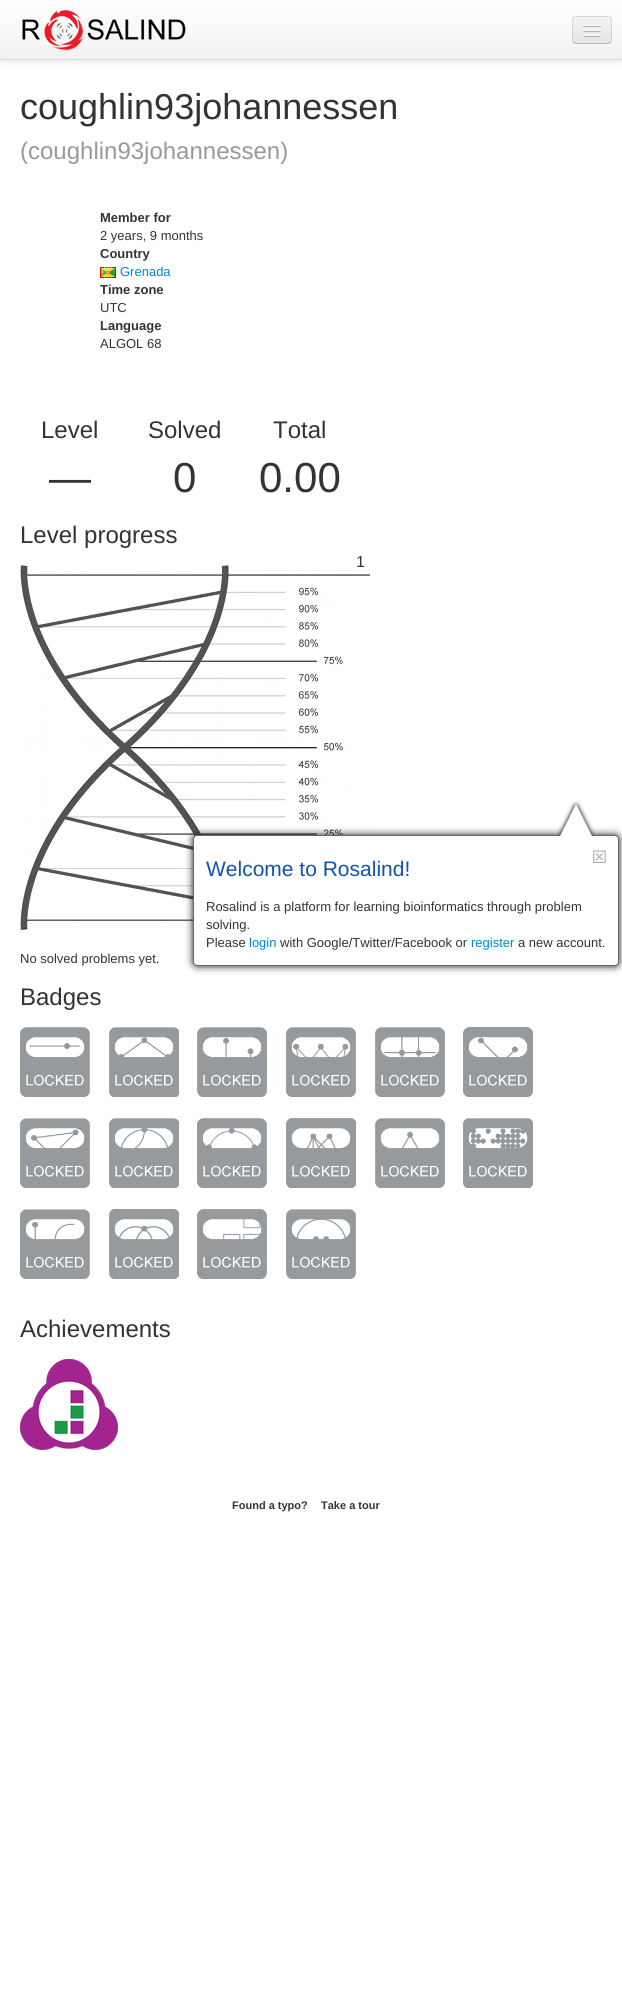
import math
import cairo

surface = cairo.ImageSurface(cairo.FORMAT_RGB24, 622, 2009)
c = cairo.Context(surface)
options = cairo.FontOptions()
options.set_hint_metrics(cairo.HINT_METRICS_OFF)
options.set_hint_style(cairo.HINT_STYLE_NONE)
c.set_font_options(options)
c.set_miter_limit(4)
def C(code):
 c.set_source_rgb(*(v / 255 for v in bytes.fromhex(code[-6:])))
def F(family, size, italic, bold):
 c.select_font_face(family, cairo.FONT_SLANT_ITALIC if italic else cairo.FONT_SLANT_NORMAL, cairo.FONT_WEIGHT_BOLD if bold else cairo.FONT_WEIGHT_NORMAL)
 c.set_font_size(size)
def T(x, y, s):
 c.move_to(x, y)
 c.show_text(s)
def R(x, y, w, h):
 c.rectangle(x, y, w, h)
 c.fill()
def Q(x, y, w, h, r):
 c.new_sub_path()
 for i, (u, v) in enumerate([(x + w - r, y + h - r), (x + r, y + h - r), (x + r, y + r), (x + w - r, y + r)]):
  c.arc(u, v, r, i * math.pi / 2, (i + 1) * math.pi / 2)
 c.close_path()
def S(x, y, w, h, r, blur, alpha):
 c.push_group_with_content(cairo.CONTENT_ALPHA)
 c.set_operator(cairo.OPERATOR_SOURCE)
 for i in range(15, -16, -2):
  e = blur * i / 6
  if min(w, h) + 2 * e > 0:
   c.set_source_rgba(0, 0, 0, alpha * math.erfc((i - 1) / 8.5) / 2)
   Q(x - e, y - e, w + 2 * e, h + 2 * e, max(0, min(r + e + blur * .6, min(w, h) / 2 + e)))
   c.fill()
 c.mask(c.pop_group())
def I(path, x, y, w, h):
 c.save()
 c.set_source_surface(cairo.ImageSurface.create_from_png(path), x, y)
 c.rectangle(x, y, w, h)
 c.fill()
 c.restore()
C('ffffff')
c.paint()
C('000000')
S(0,1,622,60,0,5,.1)
gradient = cairo.LinearGradient(311,0,311,60)
gradient.add_color_stop_rgba(0,1,1,1,1)
gradient.add_color_stop_rgba(1,0.949,0.949,0.949,1)
c.set_source(gradient)
R(0,0,622,59)
C('dadada')
R(0,59,622,1)
I('1.png',22,10,164,40)
C('ededed')
Q(572,16,40,28,4)
c.fill()
c.save()
Q(572,16,40,28,4)
c.clip()
gradient = cairo.LinearGradient(592,17,592,43)
gradient.add_color_stop_rgba(0,0.949,0.949,0.949,1)
gradient.add_color_stop_rgba(1,0.898,0.898,0.898,1)
c.set_source(gradient)
R(572,17,40,26)
c.restore()
c.new_path()
c.move_to(610.5,42.5)
c.curve_to(610,43,609,43.5,608,43.5)
c.line_to(576,43.5)
c.curve_to(575,43.5,574,43,573.5,42.5)
c.set_source_rgba(0,0,0,0.25)
c.set_line_width(1)
c.stroke()
c.new_path()
c.move_to(573.5,42.5)
c.curve_to(573,42,572.5,41,572.5,40)
c.line_to(572.5,20)
c.curve_to(572.5,19,573,18,573.5,17.5)
c.curve_to(574,17,575,16.5,576,16.5)
c.line_to(608,16.5)
c.curve_to(609,16.5,610,17,610.5,17.5)
c.curve_to(611,18,611.5,19,611.5,20)
c.line_to(611.5,40)
c.curve_to(611.5,41,611,42,610.5,42.5)
c.set_source_rgba(0,0,0,0.1)
c.stroke()
C('b2b2b2')
c.new_path()
c.move_to(583,25.5)
c.curve_to(582,27.5,586.5,27,586.5,27)
c.line_to(597.5,27)
c.curve_to(597.5,27,602,27.5,601,25.5)
c.curve_to(600,26.5,593.5,26,592,26)
c.curve_to(590.5,26,584,26.5,583,25.5)
c.close_path()
c.fill()
C('f5f5f5')
Q(583,24,18,2,1)
c.fill()
C('b0b0b0')
c.new_path()
c.move_to(583,30.5)
c.curve_to(582,32.5,586.5,32,586.5,32)
c.line_to(597.5,32)
c.curve_to(597.5,32,602,32.5,601,30.5)
c.curve_to(600,31.5,593.5,31,592,31)
c.curve_to(590.5,31,584,31.5,583,30.5)
c.close_path()
c.fill()
C('f5f5f5')
Q(583,29,18,2,1)
c.fill()
C('aeaeae')
c.new_path()
c.move_to(583,35.5)
c.curve_to(582,37.5,586.5,37,586.5,37)
c.line_to(597.5,37)
c.curve_to(597.5,37,602,37.5,601,35.5)
c.curve_to(600,36.5,593.5,36,592,36)
c.curve_to(590.5,36,584,36.5,583,35.5)
c.close_path()
c.fill()
C('f5f5f5')
Q(583,34,18,2,1)
c.fill()
F('Liberation Sans',36,0,0)
C('333333')
T(20,119,'coughlin93johannessen')
F('Liberation Sans',24,0,0)
C('999999')
T(20,159,'(coughlin93johannessen)')
F('Liberation Sans',13,0,1)
C('333333')
T(100,222,'Member for')
F('Liberation Sans',13,0,0)
T(100,240,'2 years, 9 months')
F('Liberation Sans',13,0,1)
T(100,258,'Country')
I('2.png',100,267,16,11)
F('Liberation Sans',13,0,0)
C('0088cc')
T(120,276,'Grenada')
F('Liberation Sans',13,0,1)
C('333333')
T(100,294,'Time zone')
F('Liberation Sans',13,0,0)
T(100,312,'UTC')
F('Liberation Sans',13,0,1)
T(100,330,'Language')
F('Liberation Sans',13,0,0)
T(100,348,'ALGOL 68')
F('Liberation Sans',24,0,0)
T(41,438,'Level')
F('Liberation Sans',42,0,0)
T(49,492,'—')
F('Liberation Sans',24,0,0)
T(148,438,'Solved')
F('Liberation Sans',42,0,0)
T(173,492,'0')
F('Liberation Sans',24,0,0)
T(273,438,'Total')
F('Liberation Sans',42,0,0)
T(259,492,'0.00')
F('Liberation Sans',24,0,0)
T(20,543,'Level progress')
I('3.png',20,565,350,365)
F('Liberation Sans',16,0,0)
T(356,567,'1')
F('Liberation Sans',13,0,0)
T(20,963,'No solved problems yet.')
F('Liberation Sans',24,0,0)
T(20,1005,'Badges')
I('4.png',20,1027,70,70)
I('5.png',20,1027,70,70)
I('6.png',109,1027,70,70)
I('7.png',109,1027,69,70)
I('8.png',197,1027,70,70)
I('9.png',197,1027,70,70)
I('10.png',286,1027,70,70)
I('11.png',286,1027,70,70)
I('12.png',375,1027,70,70)
I('13.png',375,1027,70,70)
I('14.png',463,1027,70,70)
I('15.png',463,1027,70,70)
I('16.png',20,1118,70,70)
I('17.png',20,1118,70,70)
I('18.png',109,1118,70,70)
I('19.png',109,1118,69,69)
I('20.png',197,1118,70,70)
I('21.png',197,1118,70,70)
I('22.png',286,1118,70,70)
I('23.png',286,1118,69,70)
I('24.png',375,1118,70,70)
I('25.png',375,1118,70,70)
I('26.png',463,1118,70,70)
I('27.png',463,1118,70,69)
I('28.png',20,1209,70,70)
I('29.png',20,1209,70,70)
I('30.png',109,1209,70,70)
I('31.png',109,1211,69,68)
I('32.png',197,1209,70,70)
I('33.png',197,1209,70,70)
I('34.png',286,1209,70,70)
I('35.png',286,1209,70,70)
T(20,1337,'Achievements')
I('36.png',20,1359,98,91)
F('Liberation Sans',11,0,1)
T(232,1509,'Found a typo?')
T(321,1509,'Take a tour')
C('111111')
S(193,835,426,131,4,4,1)
C('ffffff')
Q(193.5,835.5,425,130,3.5)
c.fill_preserve()
C('666666')
c.stroke()
I('37.png',556,800,40,36)
I('38.png',593,850,13,13)
F('Liberation Sans',21,0,0)
C('1054aa')
T(206,876,'Welcome to Rosalind!')
F('Liberation Sans',13,0,0)
C('333333')
T(206,911,'Rosalind is a platform for learning bioinformatics through problem')
T(206,929,'solving.')
T(206,947,'Please')
C('0088cc')
T(249,947,'login')
C('333333')
T(280,947,'with Google/Twitter/Facebook or')
C('0088cc')
T(471,947,'register')
C('333333')
T(518,947,'a new account.')
surface.write_to_png('o.png')
